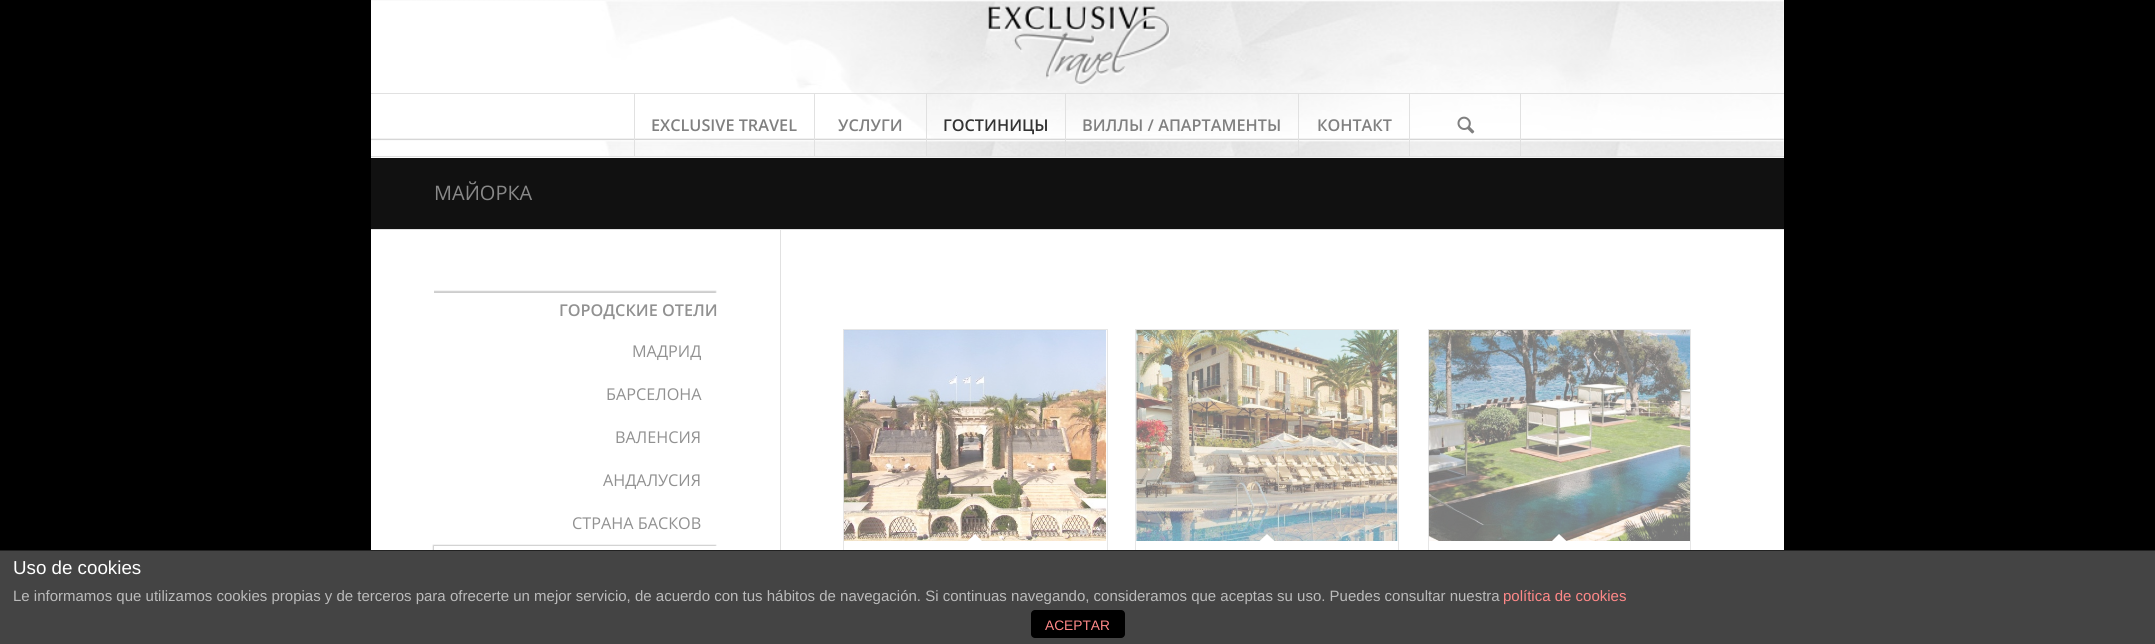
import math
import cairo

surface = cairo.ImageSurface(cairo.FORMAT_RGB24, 2155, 644)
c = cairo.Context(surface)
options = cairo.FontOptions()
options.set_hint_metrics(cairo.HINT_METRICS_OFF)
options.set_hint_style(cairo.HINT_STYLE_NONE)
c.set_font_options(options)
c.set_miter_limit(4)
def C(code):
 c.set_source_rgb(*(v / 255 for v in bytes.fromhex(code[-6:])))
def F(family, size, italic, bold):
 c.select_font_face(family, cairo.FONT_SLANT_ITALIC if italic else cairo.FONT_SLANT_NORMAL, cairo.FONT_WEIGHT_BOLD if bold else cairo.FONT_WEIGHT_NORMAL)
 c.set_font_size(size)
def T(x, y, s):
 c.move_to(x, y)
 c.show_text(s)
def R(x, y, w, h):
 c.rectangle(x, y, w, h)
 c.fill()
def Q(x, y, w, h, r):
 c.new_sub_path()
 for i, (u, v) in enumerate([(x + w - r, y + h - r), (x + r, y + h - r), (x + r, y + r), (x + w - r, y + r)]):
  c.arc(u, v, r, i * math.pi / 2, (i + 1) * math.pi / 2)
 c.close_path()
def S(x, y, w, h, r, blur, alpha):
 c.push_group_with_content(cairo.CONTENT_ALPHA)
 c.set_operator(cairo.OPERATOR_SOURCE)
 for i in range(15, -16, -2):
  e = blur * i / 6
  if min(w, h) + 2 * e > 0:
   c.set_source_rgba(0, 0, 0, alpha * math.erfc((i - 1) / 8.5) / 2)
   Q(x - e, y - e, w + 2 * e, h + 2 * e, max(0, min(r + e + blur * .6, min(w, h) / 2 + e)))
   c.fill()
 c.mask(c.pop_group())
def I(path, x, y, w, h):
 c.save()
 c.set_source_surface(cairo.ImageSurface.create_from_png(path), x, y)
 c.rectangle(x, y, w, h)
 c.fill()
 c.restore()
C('000000')
c.paint()
C('ffffff')
R(371,0,1413,158)
I('1.png',371,0,1413,158)
C('e1e1e1')
R(371,156,1413,1)
I('2.png',988,6,182,80)
R(371,93,1413,1)
R(634,94,1,62)
F('Open Sans SemiBold',16.25,0,0)
C('808080')
T(651,131,'EXCLUSIVE TRAVEL')
C('e1e1e1')
R(814,94,1,62)
C('808080')
T(838,131,'УСЛУГИ')
C('e1e1e1')
R(926,94,1,62)
C('333333')
T(943,131,'ГОСТИНИЦЫ')
C('e1e1e1')
R(1065,94,1,62)
C('808080')
T(1082,131,'ВИЛЛЫ / АПАРТАМЕНТЫ')
C('e1e1e1')
R(1298,94,1,62)
C('808080')
T(1317,131,'КОНТАКТ')
C('e1e1e1')
R(1520,94,1,62)
R(1409,94,1,62)
I('3.png',1457,116,18,18)
C('ffffff')
R(371,230,1413,320)
C('111111')
R(371,158,1413,71)
F('Open Sans',20,0,0)
C('888888')
T(434,200,'МАЙОРКА')
C('e1e1e1')
R(371,229,1413,1)
c.save()
c.rectangle(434,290,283,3)
c.clip()
C('cdcdcd')
S(433,291,283,254,0,.5,1)
c.restore()
F('Open Sans SemiBold',16.25,0,0)
C('919191')
T(559,316,'ГОРОДСКИЕ ОТЕЛИ')
F('Open Sans',16.25,0,0)
T(632,357,'МАДРИД')
T(606,400,'БАРСЕЛОНА')
T(615,443,'ВАЛЕНСИЯ')
T(603,486,'АНДАЛУСИЯ')
T(572,529,'СТРАНА БАСКОВ')
c.save()
c.set_fill_rule(cairo.FILL_RULE_EVEN_ODD)
c.new_path()
c.move_to(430,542)
c.line_to(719,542)
c.line_to(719,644)
c.line_to(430,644)
c.close_path()
c.move_to(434,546)
c.line_to(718,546)
c.line_to(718,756)
c.line_to(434,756)
c.close_path()
c.clip()
C('cdcdcd')
S(433,545,283,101,0,.5,1)
c.restore()
C('e1e1e1')
R(780,230,1,320)
c.rectangle(843.5,329.5,264,296)
C('e6e6e6')
c.set_line_width(1)
c.stroke()
I('4.png',843,330,264,211)
C('ffffff')
c.new_path()
c.move_to(975,534)
c.line_to(983.5,542.5)
c.line_to(975,551.5)
c.line_to(966,542.5)
c.close_path()
c.fill()
c.rectangle(1135.5,329.5,263,296)
C('e6e6e6')
c.stroke()
I('5.png',1136,330,262,211)
C('ffffff')
c.new_path()
c.move_to(1267,534)
c.line_to(1276,542.5)
c.line_to(1267,551.5)
c.line_to(1258,542.5)
c.close_path()
c.fill()
c.rectangle(1428.5,329.5,262,296)
C('e6e6e6')
c.stroke()
I('6.png',1428,330,262,211)
C('ffffff')
c.new_path()
c.move_to(1559,534)
c.line_to(1568,542.5)
c.line_to(1559,551.5)
c.line_to(1550.5,542.5)
c.close_path()
c.fill()
C('444444')
R(0,551,2155,93)
C('222222')
R(0,550,2155,1)
F('Liberation Sans',18.75,0,0)
C('ffffff')
T(13,574,'Uso de cookies')
F('Liberation Sans',15,0,0)
C('bbbbbb')
T(13,601,'Le informamos que utilizamos cookies propias y de terceros para ofrecerte un mejor servicio, de acuerdo con tus hábitos de navegación. Si continuas navegando, consideramos que aceptas su uso. Puedes consultar nuestra')
C('ff8888')
T(1503,601,'política de cookies')
C('000000')
Q(1031,610,94,28,4)
c.fill()
F('Liberation Sans',13.75,0,0)
C('ff8888')
T(1045,630,'ACEPTAR')
surface.write_to_png('o.png')
